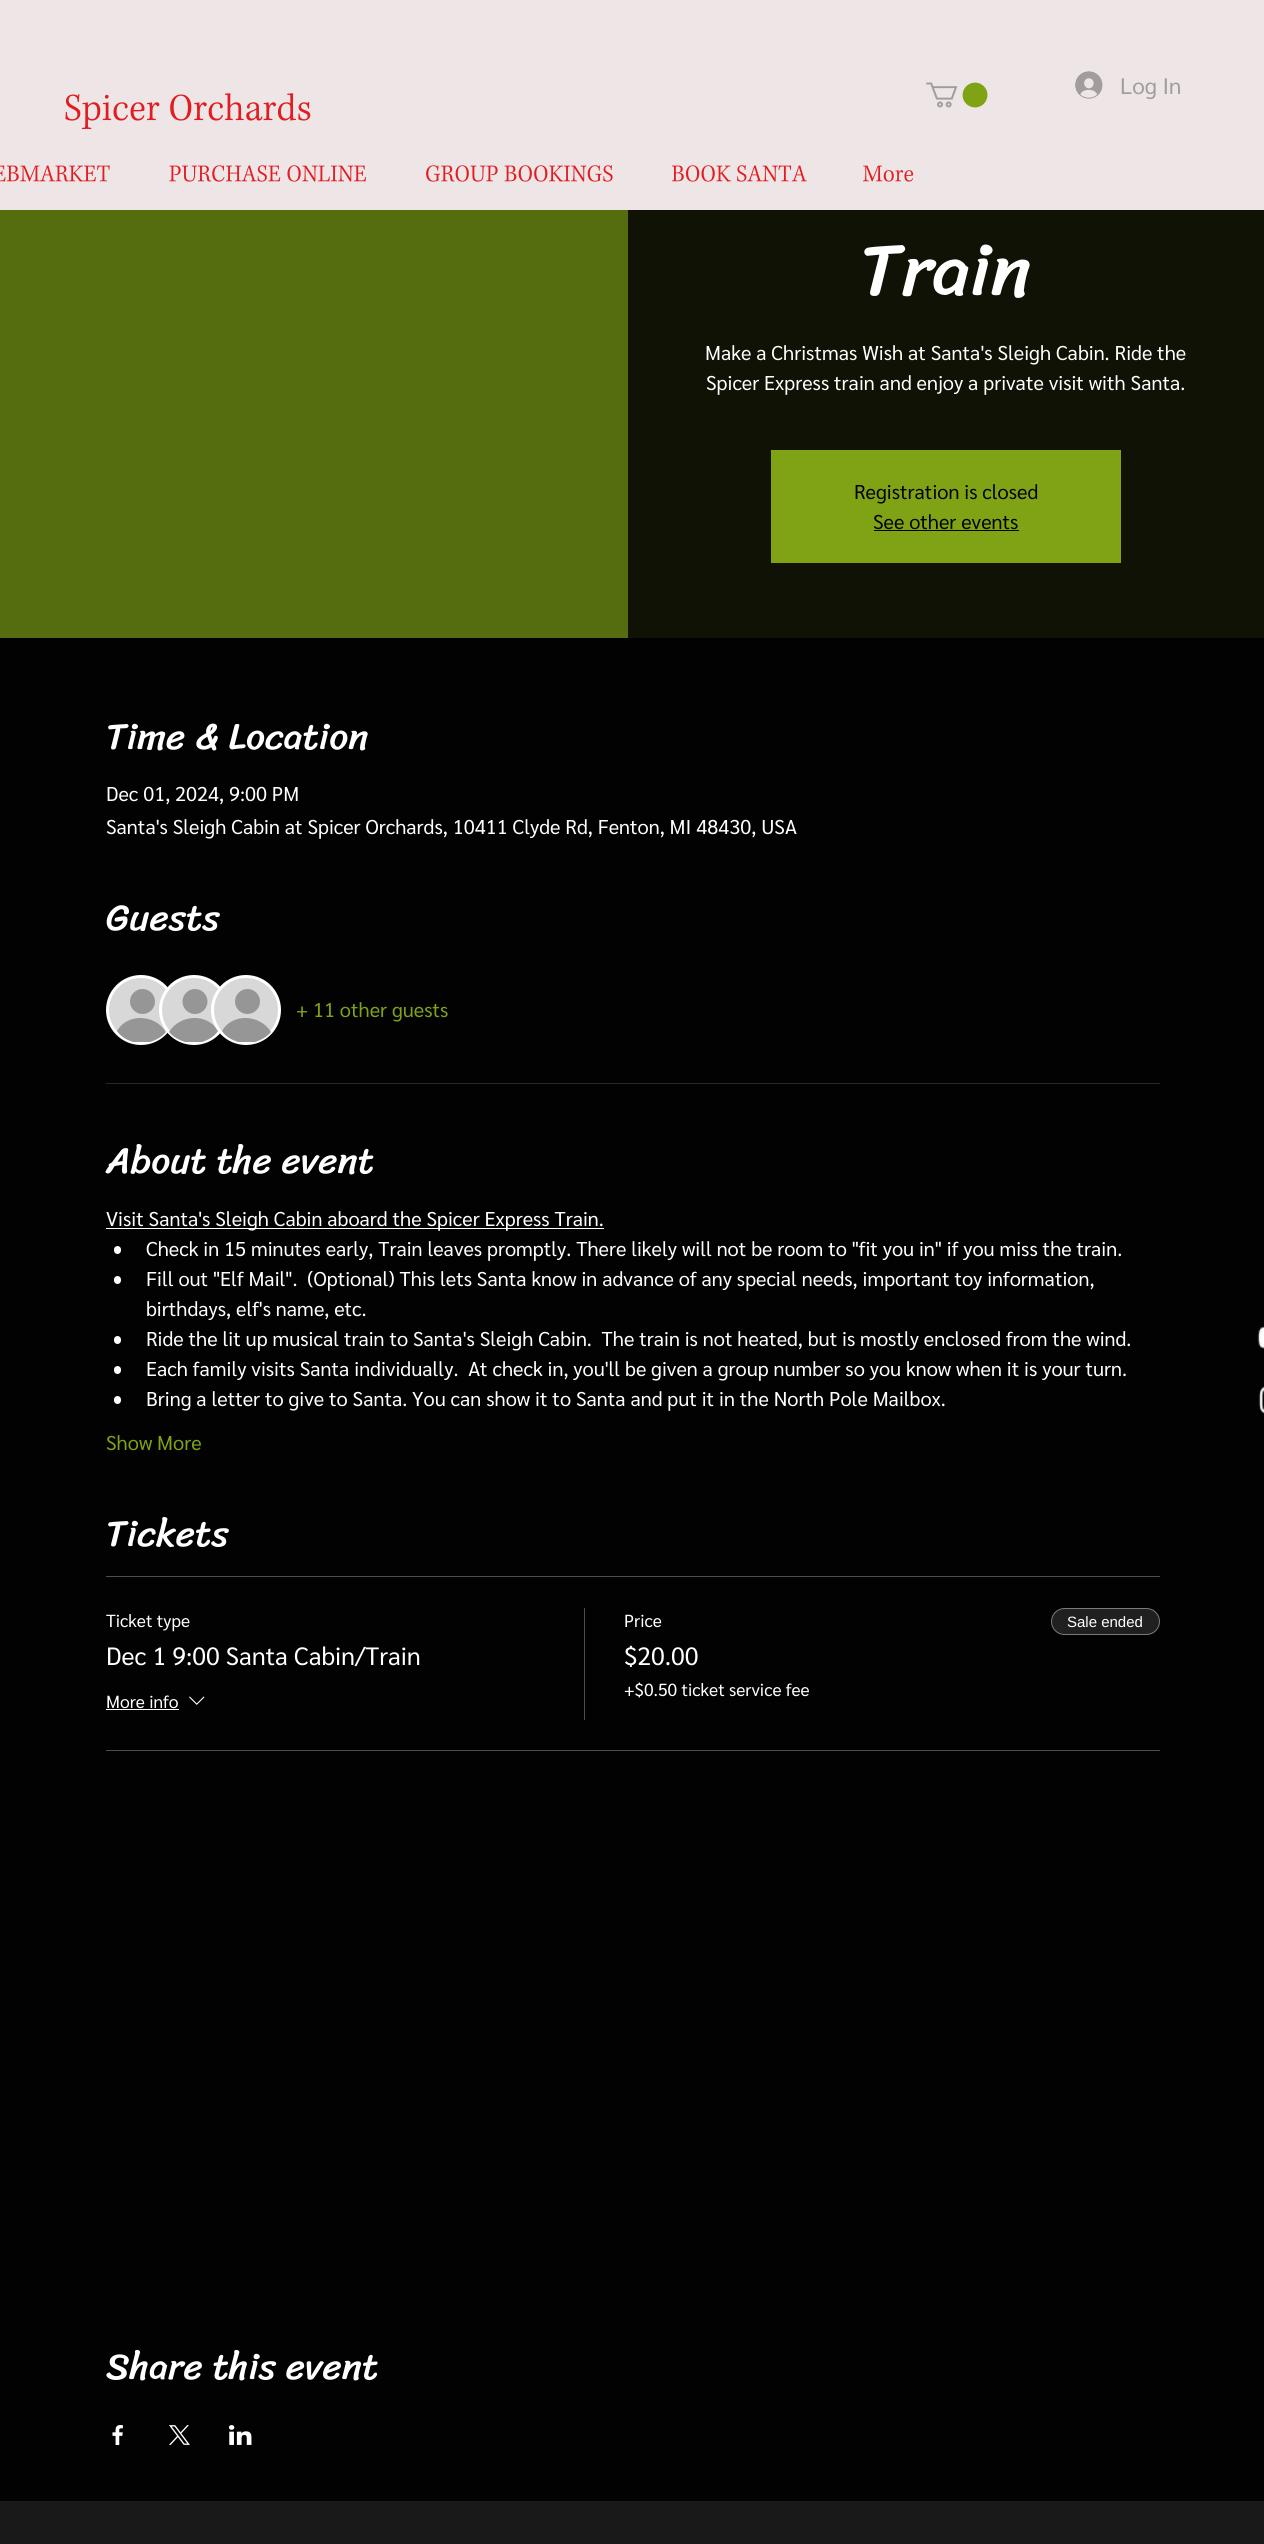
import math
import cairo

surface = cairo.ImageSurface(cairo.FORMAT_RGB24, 1264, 2544)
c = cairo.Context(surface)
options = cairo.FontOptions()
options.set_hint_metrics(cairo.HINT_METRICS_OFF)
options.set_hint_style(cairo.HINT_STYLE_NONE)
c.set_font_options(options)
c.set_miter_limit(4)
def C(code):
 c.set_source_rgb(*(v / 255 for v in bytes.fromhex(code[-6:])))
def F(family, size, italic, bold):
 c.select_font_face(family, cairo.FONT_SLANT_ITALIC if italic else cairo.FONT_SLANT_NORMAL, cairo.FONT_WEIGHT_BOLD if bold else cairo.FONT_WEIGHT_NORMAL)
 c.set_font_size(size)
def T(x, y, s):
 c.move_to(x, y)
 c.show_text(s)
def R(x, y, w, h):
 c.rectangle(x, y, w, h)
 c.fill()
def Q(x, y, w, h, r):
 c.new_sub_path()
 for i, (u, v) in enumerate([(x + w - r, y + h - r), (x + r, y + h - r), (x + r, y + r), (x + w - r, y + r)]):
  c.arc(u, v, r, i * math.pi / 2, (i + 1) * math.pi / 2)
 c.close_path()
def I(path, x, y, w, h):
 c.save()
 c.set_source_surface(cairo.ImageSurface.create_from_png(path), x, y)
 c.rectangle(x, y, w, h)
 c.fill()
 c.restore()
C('020202')
c.paint()
C('eee6e6')
R(0,0,1264,210)
I('1.png',926,82,62,26)
I('2.png',1075,71,28,28)
F('Sarabun',22.5,0,0)
C('a29c9c')
T(1120,94,'Log In')
I('3.png',0,165,110,17)
I('4.png',169,165,197,17)
I('5.png',426,165,187,17)
I('6.png',671,165,136,17)
I('7.png',863,165,51,17)
I('8.png',65,93,246,37)
C('556d0e')
R(0,210,628,428)
C('0f1204')
R(628,210,636,428)
F('Sriracha',75,0,0)
C('ffffff')
T(860,295,'Train')
F('Sarabun',20,0,0)
T(705,360,'Make a Christmas Wish at Santa\'s Sleigh Cabin. Ride the')
T(706,390,'Spicer Express train and enjoy a private visit with Santa.')
C('80a315')
R(771,450,350,113)
C('020202')
T(854,499,'Registration is closed')
T(873,529,'See other events')
R(874,530,145,1)
F('Sriracha',37.5,0,0)
C('ffffff')
T(106,749,'Time & Location')
F('Sarabun',20,0,0)
T(106,801,'Dec 01, 2024, 9:00 PM')
T(106,834,'Santa\'s Sleigh Cabin at Spicer Orchards, 10411 Clyde Rd, Fenton, MI 48430, USA')
F('Sriracha',37.5,0,0)
T(106,930,'Guests')
C('d8d8d8')
c.new_path()
c.arc(141,1010,33.5,0,2 * math.pi)
c.fill_preserve()
C('ffffff')
c.set_line_width(3)
c.stroke()
C('969696')
c.arc(142.5,1001.5,12.5,0,2 * math.pi)
c.fill()
c.new_path()
c.move_to(133,1042)
c.curve_to(127,1040,121,1037,117,1031)
c.curve_to(127,1013,155,1014,166,1032)
c.curve_to(162,1037,156,1040,150,1042)
c.close_path()
c.fill()
C('d8d8d8')
c.arc(194,1010,33.5,0,2 * math.pi)
c.fill_preserve()
C('ffffff')
c.stroke()
C('969696')
c.arc(195,1001.5,12.5,0,2 * math.pi)
c.fill()
c.new_path()
c.move_to(185,1042)
c.curve_to(179,1040,173,1037,169,1032)
c.curve_to(180,1014,208,1013,218,1031)
c.curve_to(214,1037,208,1040,202,1042)
c.close_path()
c.fill()
C('d8d8d8')
c.arc(246,1010,33.5,0,2 * math.pi)
c.fill_preserve()
C('ffffff')
c.stroke()
C('969696')
c.arc(247.5,1001.5,12.5,0,2 * math.pi)
c.fill()
c.new_path()
c.move_to(238,1042)
c.curve_to(232,1040,226,1037,222,1031)
c.curve_to(232,1013,260,1014,271,1032)
c.curve_to(267,1037,261,1040,255,1042)
c.close_path()
c.fill()
F('Sarabun',20,0,0)
C('80a315')
T(296,1017,'+ 11 other guests')
C('282828')
R(106,1083,1054,1)
F('Sriracha',37.5,0,0)
C('ffffff')
T(106,1173,'About the event')
R(106,1228,498,1)
F('Sarabun',20,0,0)
T(106,1226,'Visit Santa\'s Sleigh Cabin aboard the Spicer Express Train.')
Q(114,1246,7,8,3.5)
c.fill()
T(146,1256,'Check in 15 minutes early, Train leaves promptly. There likely will not be room to "fit you in" if you miss the train.')
Q(114,1276,7,8,3.5)
c.fill()
T(146,1286,'Fill out "Elf Mail".  (Optional) This lets Santa know in advance of any special needs, important toy information,')
T(146,1316,'birthdays, elf\'s name, etc.')
Q(114,1336,7,8,3.5)
c.fill()
T(146,1346,'Ride the lit up musical train to Santa\'s Sleigh Cabin.  The train is not heated, but is mostly enclosed from the wind.')
Q(114,1366,7,8,3.5)
c.fill()
T(146,1376,'Each family visits Santa individually.  At check in, you\'ll be given a group number so you know when it is your turn.')
Q(114,1396,7,8,3.5)
c.fill()
T(146,1406,'Bring a letter to give to Santa. You can show it to Santa and put it in the North Pole Mailbox.')
C('80a315')
T(106,1450,'Show More')
F('Sriracha',37.5,0,0)
C('ffffff')
T(106,1546,'Tickets')
C('4e4e4e')
R(106,1576,1054,1)
R(106,1750,1054,1)
F('Sarabun',17.5,0,0)
C('ffffff')
T(106,1627,'Ticket type')
F('Sarabun',25,0,0)
T(106,1665,'Dec 1 9:00 Santa Cabin/Train')
F('Sarabun',17.5,0,0)
T(106,1708,'More info')
R(106,1709,73,1)
I('9.png',189,1696,16,9)
C('4e4e4e')
R(584,1608,1,112)
C('ffffff')
T(624,1627,'Price')
F('Sarabun',25,0,0)
T(624,1665,'$20.00')
F('Sarabun',17.5,0,0)
T(624,1696,'+$0.50 ticket service fee')
C('202020')
Q(1051,1608,109,27,13.5)
c.fill()
Q(1051.5,1608.5,108,26,13)
c.set_source_rgba(1,1,1,0.4)
c.set_line_width(1)
c.stroke()
F('Liberation Sans',15,0,0)
C('ffffff')
T(1067,1627,'Sale ended')
F('Sriracha',37.5,0,0)
T(106,2379,'Share this event')
I('10.png',112,2425,11,20)
I('11.png',169,2425,21,20)
I('12.png',229,2425,23,20)
I('13.png',1257,1326,7,23)
I('14.png',1258,1386,6,28)
C('1a1919')
R(0,2501,1264,43)
surface.write_to_png('o.png')
